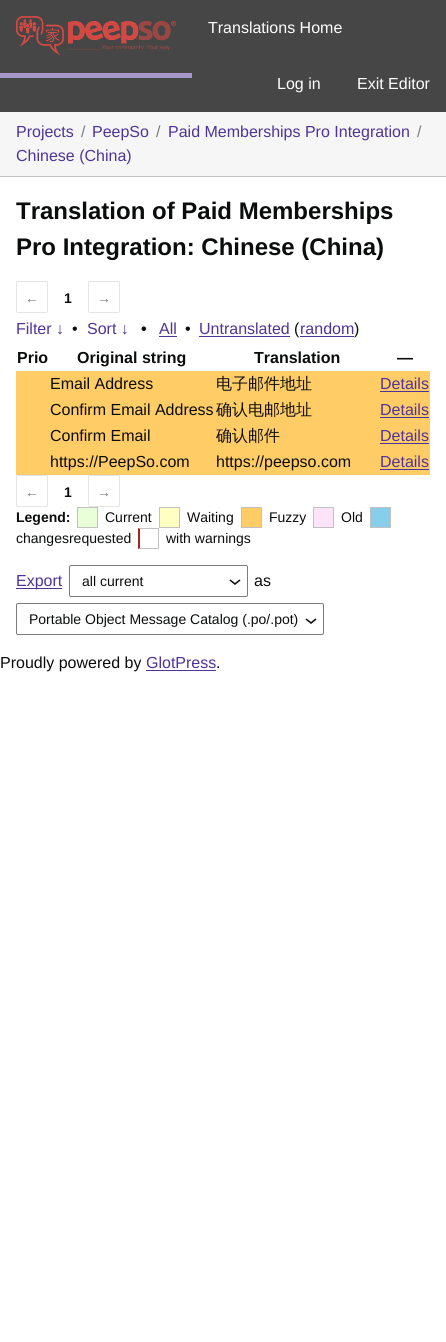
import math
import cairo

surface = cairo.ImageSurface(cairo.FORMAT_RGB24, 446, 1342)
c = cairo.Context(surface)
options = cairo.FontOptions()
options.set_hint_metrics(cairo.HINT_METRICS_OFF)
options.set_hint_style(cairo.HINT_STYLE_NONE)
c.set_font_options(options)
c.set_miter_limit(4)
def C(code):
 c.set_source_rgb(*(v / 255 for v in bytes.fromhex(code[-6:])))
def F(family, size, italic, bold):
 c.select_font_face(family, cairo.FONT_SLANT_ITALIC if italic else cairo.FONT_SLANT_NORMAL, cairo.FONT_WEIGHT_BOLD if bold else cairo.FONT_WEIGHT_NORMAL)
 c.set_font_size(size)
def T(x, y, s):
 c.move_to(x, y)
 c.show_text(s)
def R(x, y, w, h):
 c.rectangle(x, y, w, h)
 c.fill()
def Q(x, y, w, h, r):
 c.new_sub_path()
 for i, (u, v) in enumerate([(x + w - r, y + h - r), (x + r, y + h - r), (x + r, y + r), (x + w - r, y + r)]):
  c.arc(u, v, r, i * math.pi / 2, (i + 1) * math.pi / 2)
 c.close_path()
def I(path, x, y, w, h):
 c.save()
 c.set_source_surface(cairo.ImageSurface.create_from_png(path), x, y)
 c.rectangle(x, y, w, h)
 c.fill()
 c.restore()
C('ffffff')
c.paint()
C('464646')
R(0,0,446,112)
C('a597c9')
R(0,73,192,5)
I('1.png',16,16,160,39)
F('Liberation Sans',16,0,0)
C('ffffff')
T(208,33,'Translations Home')
T(277,89,'Log in')
T(357,89,'Exit Editor')
C('f6f6f6')
R(0,112,446,64)
C('c1c1c1')
R(0,176,446,1)
C('4e3499')
T(16,137,'Projects')
C('7a7a7a')
T(81,137,'/')
C('4e3499')
T(92,137,'PeepSo')
C('7a7a7a')
T(156,137,'/')
C('4e3499')
T(168,137,'Paid Memberships Pro Integration')
C('7a7a7a')
T(417,137,'/')
C('4e3499')
T(16,161,'Chinese (China)')
F('Liberation Sans',24,0,1)
C('0b0c0c')
T(16,219,'Translation of Paid Memberships')
T(16,255,'Pro Integration: Chinese (China)')
Q(16.5,281.5,31,31,1.5)
C('e4e4e4')
c.set_line_width(1)
c.stroke()
F('Liberation Sans',14,0,0)
C('7a7a7a')
T(25,303,'←')
F('Liberation Sans',14,0,1)
C('0b0c0c')
T(64,303,'1')
Q(88.5,281.5,31,31,1.5)
C('e4e4e4')
c.stroke()
F('Liberation Sans',14,0,0)
C('7a7a7a')
T(97,303,'→')
F('Liberation Sans',16,0,0)
C('4e3499')
T(16,334,'Filter ↓')
C('0b0c0c')
T(72,334,'•')
C('4e3499')
T(87,334,'Sort ↓')
F('Liberation Sans',16,0,1)
C('0b0c0c')
T(141,334,'•')
F('Liberation Sans',16,0,0)
C('4e3499')
T(159,334,'All')
R(159,336,18,1)
C('0b0c0c')
T(185,334,'•')
C('4e3499')
T(199,334,'Untranslated')
R(199,336,91,1)
C('0b0c0c')
T(294,334,'(')
C('4e3499')
T(300,334,'random')
R(300,336,54,1)
C('0b0c0c')
T(354,334,')')
F('Liberation Sans',16,0,1)
T(17,363,'Prio')
T(77,363,'Original string')
T(254,363,'Translation')
T(397,363,'—')
C('ffcc66')
R(16,371,414,104)
F('Liberation Sans',16,0,0)
C('0b0c0c')
T(50,389,'Email Address')
F('WenQuanYi Zen Hei Medium',16,0,0)
T(216,389,'电子邮件地址')
F('Liberation Sans',16,0,0)
C('4e3499')
T(380,389,'Details')
R(380,391,49,1)
C('0b0c0c')
T(50,415,'Confirm Email Address')
F('WenQuanYi Zen Hei Medium',16,0,0)
T(216,415,'确认电邮地址')
F('Liberation Sans',16,0,0)
C('4e3499')
T(380,415,'Details')
R(380,417,49,1)
C('0b0c0c')
T(50,441,'Confirm Email')
F('WenQuanYi Zen Hei Medium',16,0,0)
T(216,441,'确认邮件')
F('Liberation Sans',16,0,0)
C('4e3499')
T(380,441,'Details')
R(380,443,49,1)
C('0b0c0c')
T(50,467,'https://PeepSo.com')
T(216,467,'https://peepso.com')
C('4e3499')
T(380,467,'Details')
R(380,469,49,1)
Q(16.5,475.5,31,31,1.5)
C('e4e4e4')
c.stroke()
F('Liberation Sans',14,0,0)
C('7a7a7a')
T(25,497,'←')
F('Liberation Sans',14,0,1)
C('0b0c0c')
T(64,497,'1')
Q(88.5,475.5,31,31,1.5)
C('e4e4e4')
c.stroke()
F('Liberation Sans',14,0,0)
C('7a7a7a')
T(97,497,'→')
F('Liberation Sans',14,0,1)
C('0b0c0c')
T(16,522,'Legend:')
C('e9ffd8')
c.rectangle(77.5,507.5,20,20)
c.fill_preserve()
C('c1c1c1')
c.stroke()
F('Liberation Sans',14,0,0)
C('0b0c0c')
T(105,522,'Current')
C('ffffc2')
c.rectangle(159.5,507.5,20,20)
c.fill_preserve()
C('c1c1c1')
c.stroke()
C('0b0c0c')
T(187,522,'Waiting')
C('ffcc66')
c.rectangle(241.5,507.5,20,20)
c.fill_preserve()
C('c1c1c1')
c.stroke()
C('0b0c0c')
T(269,522,'Fuzzy')
C('fee4f8')
c.rectangle(313.5,507.5,20,20)
c.fill_preserve()
C('c1c1c1')
c.stroke()
C('0b0c0c')
T(341,522,'Old')
C('87ceeb')
c.rectangle(370.5,507.5,20,20)
c.fill_preserve()
C('c1c1c1')
c.stroke()
C('0b0c0c')
T(16,543,'changesrequested')
C('c1c1c1')
c.new_path()
c.move_to(138,528)
c.line_to(159,528)
c.line_to(158,529)
c.line_to(140,529)
c.close_path()
c.fill()
R(158,528,1,21)
c.new_path()
c.move_to(159,549)
c.line_to(138,549)
c.line_to(140,548)
c.line_to(158,548)
c.close_path()
c.fill()
C('a62626')
c.new_path()
c.move_to(138,549)
c.line_to(138,528)
c.line_to(140,529)
c.line_to(140,548)
c.close_path()
c.fill()
C('0b0c0c')
T(166,543,'with warnings')
C('4e3499')
R(16,588,46,1)
F('Liberation Sans',16,0,0)
T(16,586,'Export')
I('2.png',229,579,12,6)
Q(69.5,565.5,178,31,1.5)
C('7a7a7a')
c.stroke()
F('Liberation Sans',14,0,0)
C('0b0c0c')
T(82,586,'all current')
F('Liberation Sans',16,0,0)
T(254,586,'as')
I('2.png',305,618,12,6)
Q(16.5,603.5,307,31,1.5)
C('7a7a7a')
c.stroke()
F('Liberation Sans',14,0,0)
C('0b0c0c')
T(29,624,'Portable Object Message Catalog (.po/.pot)')
F('Liberation Sans',16,0,0)
T(0,668,'Proudly powered by')
C('4e3499')
T(146,668,'GlotPress')
R(146,670,70,1)
C('0b0c0c')
T(216,668,'.')
surface.write_to_png('o.png')
